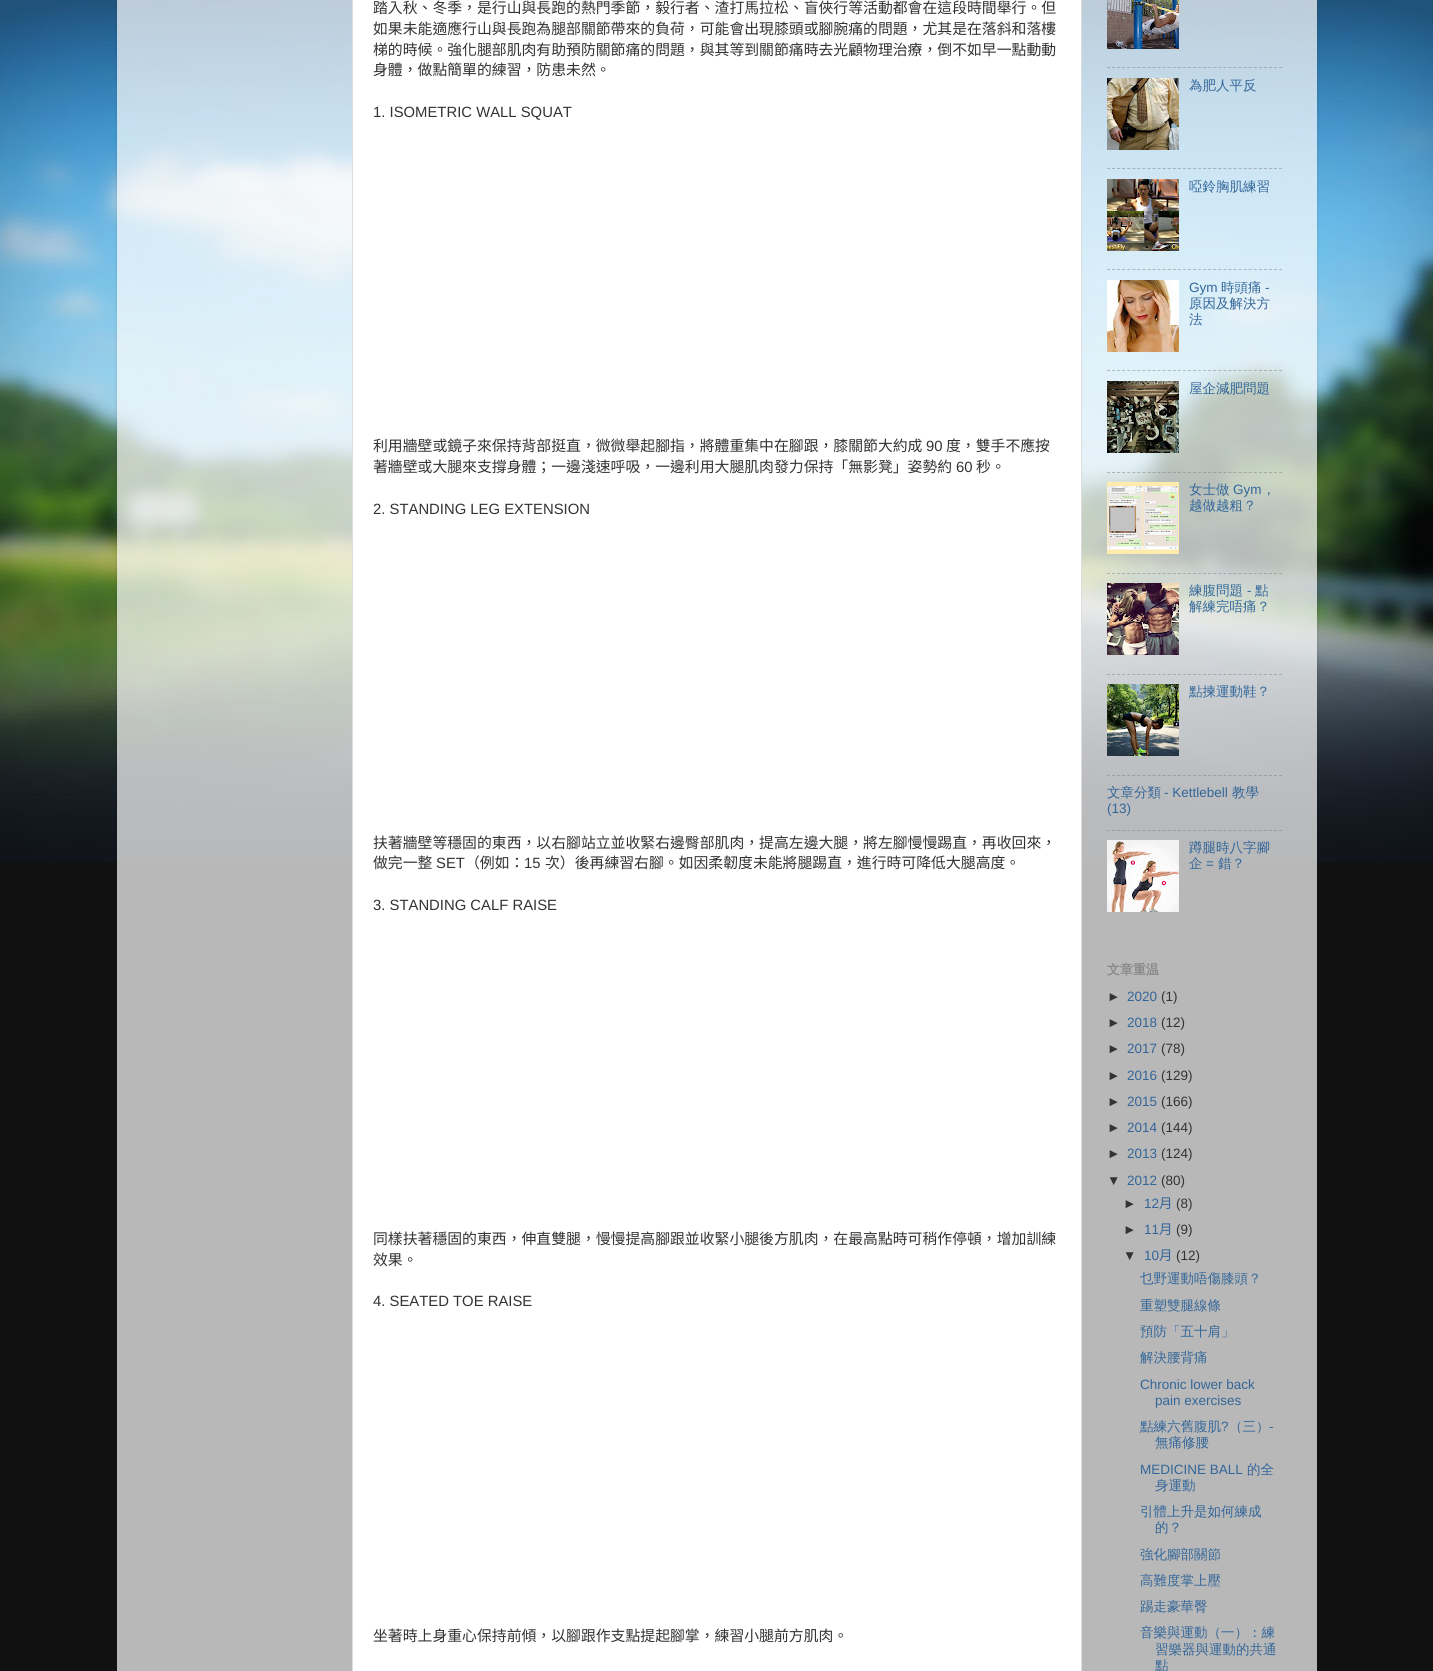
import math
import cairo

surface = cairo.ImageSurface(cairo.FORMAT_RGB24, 1433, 1671)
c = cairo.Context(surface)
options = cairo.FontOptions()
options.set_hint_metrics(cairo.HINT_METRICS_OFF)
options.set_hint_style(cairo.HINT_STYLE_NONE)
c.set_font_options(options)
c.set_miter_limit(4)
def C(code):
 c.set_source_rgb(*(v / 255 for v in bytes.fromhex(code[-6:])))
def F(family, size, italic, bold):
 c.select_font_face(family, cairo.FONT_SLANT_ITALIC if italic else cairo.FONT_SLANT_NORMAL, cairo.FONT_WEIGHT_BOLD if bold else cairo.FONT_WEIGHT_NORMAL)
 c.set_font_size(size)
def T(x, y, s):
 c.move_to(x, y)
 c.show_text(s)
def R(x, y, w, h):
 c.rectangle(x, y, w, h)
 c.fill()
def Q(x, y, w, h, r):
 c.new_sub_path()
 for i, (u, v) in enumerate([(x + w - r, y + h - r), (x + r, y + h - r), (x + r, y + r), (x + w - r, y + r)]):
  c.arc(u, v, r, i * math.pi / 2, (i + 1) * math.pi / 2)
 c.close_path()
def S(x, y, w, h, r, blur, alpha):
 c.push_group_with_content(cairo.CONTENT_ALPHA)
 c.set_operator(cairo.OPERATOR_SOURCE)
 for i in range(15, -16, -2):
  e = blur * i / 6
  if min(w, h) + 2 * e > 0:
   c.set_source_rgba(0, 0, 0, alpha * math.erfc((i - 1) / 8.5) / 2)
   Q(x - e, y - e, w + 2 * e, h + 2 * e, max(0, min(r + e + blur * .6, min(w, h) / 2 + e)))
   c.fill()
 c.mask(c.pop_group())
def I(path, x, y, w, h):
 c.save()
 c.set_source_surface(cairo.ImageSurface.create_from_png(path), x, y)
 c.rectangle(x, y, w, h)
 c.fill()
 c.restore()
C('111111')
c.paint()
I('1.png',0,0,1433,862)
c.save()
c.set_fill_rule(cairo.FILL_RULE_EVEN_ODD)
c.new_path()
c.move_to(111,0)
c.line_to(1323,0)
c.line_to(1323,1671)
c.line_to(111,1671)
c.close_path()
c.move_to(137,-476)
c.line_to(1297,-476)
c.curve_to(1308,-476,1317,-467,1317,-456)
c.line_to(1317,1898)
c.line_to(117,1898)
c.line_to(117,-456)
c.curve_to(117,-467,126,-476,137,-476)
c.close_path()
c.clip()
C('000000')
S(117,-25,1200,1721,20,1.5,.15)
c.restore()
c.set_source_rgba(1,1,1,0.7)
R(117,0,1200,1671)
C('ffffff')
c.rectangle(352.5,-.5,729,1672)
c.fill_preserve()
C('dddddd')
c.set_line_width(1)
c.stroke()
F('Noto Sans CJK TC',14.85,0,0)
C('333333')
T(373,13,'踏入秋、冬季，是行山與長跑的熱門季節，毅行者、渣打馬拉松、盲俠行等活動都會在這段時間舉行。但')
T(373,34,'如果未能適應行山與長跑為腿部關節帶來的負荷，可能會出現膝頭或腳腕痛的問題，尤其是在落斜和落樓')
T(373,55,'梯的時候。強化腿部肌肉有助預防關節痛的問題，與其等到關節痛時去光顧物理治療，倒不如早一點動動')
T(373,75,'身體，做點簡單的練習，防患未然。')
F('Liberation Sans',14.85,0,0)
T(373,117,'1. ISOMETRIC WALL SQUAT')
F('Noto Sans CJK TC',14.85,0,0)
T(373,451,'利用牆壁或鏡子來保持背部挺直，微微舉起腳指，將體重集中在腳跟，膝關節大約成')
F('Liberation Sans',14.85,0,0)
T(926,451,'90')
F('Noto Sans CJK TC',14.85,0,0)
T(946,451,'度，雙手不應按')
T(373,472,'著牆壁或大腿來支撐身體；一邊淺速呼吸，一邊利用大腿肌肉發力保持「無影凳」姿勢約')
F('Liberation Sans',14.85,0,0)
T(956,472,'60')
F('Noto Sans CJK TC',14.85,0,0)
T(976,472,'秒。')
F('Liberation Sans',14.85,0,0)
T(373,514,'2. STANDING LEG EXTENSION')
F('Noto Sans CJK TC',14.85,0,0)
T(373,848,'扶著牆壁等穩固的東西，以右腳站立並收緊右邊臀部肌肉，提高左邊大腿，將左腳慢慢踢直，再收回來，')
T(373,868,'做完一整')
F('Liberation Sans',14.85,0,0)
T(436,868,'SET')
F('Noto Sans CJK TC',14.85,0,0)
T(465,868,'（例如：')
F('Liberation Sans',14.85,0,0)
T(524,868,'15')
F('Noto Sans CJK TC',14.85,0,0)
T(545,868,'次）後再練習右腳。如因柔韌度未能將腿踢直，進行時可降低大腿高度。')
F('Liberation Sans',14.85,0,0)
T(373,910,'3. STANDING CALF RAISE')
F('Noto Sans CJK TC',14.85,0,0)
T(373,1244,'同樣扶著穩固的東西，伸直雙腿，慢慢提高腳跟並收緊小腿後方肌肉，在最高點時可稍作停頓，增加訓練')
T(373,1265,'效果。')
F('Liberation Sans',14.85,0,0)
T(373,1306,'4. SEATED TOE RAISE')
F('Noto Sans CJK TC',14.85,0,0)
T(373,1641,'坐著時上身重心保持前傾，以腳跟作支點提起腳掌，練習小腿前方肌肉。')
I('2.png',1107,0,72,49)
c.new_path()
c.move_to(1107,67.5)
c.line_to(1282,67.5)
C('a1abb3')
c.set_dash([3,2.06])
c.stroke()
I('3.png',1107,78,72,72)
F('WenQuanYi Zen Hei Medium',13.5,0,0)
C('336699')
T(1189,90,'為肥人平反')
c.new_path()
c.move_to(1107,168.5)
c.line_to(1282,168.5)
C('a6b2ba')
c.stroke()
I('4.png',1107,179,72,72)
C('336699')
T(1189,191,'啞鈴胸肌練習')
c.new_path()
c.move_to(1107,269.5)
c.line_to(1282,269.5)
C('acb7bc')
c.stroke()
I('5.png',1107,280,72,72)
F('Liberation Sans',13.5,0,0)
C('336699')
T(1189,292,'Gym')
F('WenQuanYi Zen Hei Medium',13.5,0,0)
T(1221,292,'時頭痛')
F('Liberation Sans',13.5,0,0)
T(1265,292,'-')
F('WenQuanYi Zen Hei Medium',13.5,0,0)
T(1189,308,'原因及解決方')
T(1189,324,'法')
c.new_path()
c.move_to(1107,370.5)
c.line_to(1282,370.5)
c.set_source_rgba(0.502,0.502,0.502,0.5)
c.stroke()
I('6.png',1107,381,72,72)
C('336699')
T(1189,393,'屋企減肥問題')
c.new_path()
c.move_to(1107,472.5)
c.line_to(1282,472.5)
c.set_source_rgba(0.502,0.502,0.502,0.5)
c.stroke()
I('7.png',1107,482,72,72)
C('336699')
T(1189,494,'女士做')
F('Liberation Sans',13.5,0,0)
T(1233,494,'Gym')
F('WenQuanYi Zen Hei Medium',13.5,0,0)
T(1262,494,'，')
T(1189,510,'越做越粗？')
c.new_path()
c.move_to(1107,573.5)
c.line_to(1282,573.5)
c.set_source_rgba(0.502,0.502,0.502,0.5)
c.stroke()
I('8.png',1107,583,72,72)
C('336699')
T(1189,595,'練腹問題')
F('Liberation Sans',13.5,0,0)
T(1247,595,'-')
F('WenQuanYi Zen Hei Medium',13.5,0,0)
T(1255,595,'點')
T(1189,611,'解練完唔痛？')
c.new_path()
c.move_to(1107,674.5)
c.line_to(1282,674.5)
c.set_source_rgba(0.502,0.502,0.502,0.5)
c.stroke()
I('9.png',1107,684,72,72)
C('336699')
T(1189,696,'點揀運動鞋？')
c.new_path()
c.move_to(1107,775.5)
c.line_to(1282,775.5)
C('9e9fa0')
c.stroke()
C('336699')
T(1107,797,'文章分類')
F('Liberation Sans',13.5,0,0)
T(1164,797,'- Kettlebell')
F('WenQuanYi Zen Hei Medium',13.5,0,0)
T(1232,797,'教學')
F('Liberation Sans',13.5,0,0)
T(1107,813,'(13)')
c.new_path()
c.move_to(1107,830.5)
c.line_to(1282,830.5)
C('9c9d9e')
c.stroke()
I('10.png',1107,840,72,72)
F('WenQuanYi Zen Hei Medium',13.5,0,0)
C('336699')
T(1189,852,'蹲腿時八字腳')
T(1189,868,'企')
F('Liberation Sans',13.5,0,0)
T(1206,868,'=')
F('WenQuanYi Zen Hei Medium',13.5,0,0)
T(1218,868,'錯？')
F('WenQuanYi Zen Hei',13,0,1)
C('888888')
T(1107,974,'文章重温')
F('Liberation Sans',13.5,0,0)
C('333333')
T(1107,1001,'►')
C('336699')
T(1127,1001,'2020')
C('333333')
T(1161,1001,'(1)')
T(1107,1027,'►')
C('336699')
T(1127,1027,'2018')
C('333333')
T(1161,1027,'(12)')
T(1107,1053,'►')
C('336699')
T(1127,1053,'2017')
C('333333')
T(1161,1053,'(78)')
T(1107,1080,'►')
C('336699')
T(1127,1080,'2016')
C('333333')
T(1161,1080,'(129)')
T(1107,1106,'►')
C('336699')
T(1127,1106,'2015')
C('333333')
T(1161,1106,'(166)')
T(1107,1132,'►')
C('336699')
T(1127,1132,'2014')
C('333333')
T(1161,1132,'(144)')
T(1107,1158,'►')
C('336699')
T(1127,1158,'2013')
C('333333')
T(1161,1158,'(124)')
T(1107,1185,'▼')
C('336699')
T(1127,1185,'2012')
C('333333')
T(1161,1185,'(80)')
T(1123,1208,'►')
C('336699')
T(1144,1208,'12')
F('Noto Sans CJK TC',13.5,0,0)
T(1159,1208,'月')
F('Liberation Sans',13.5,0,0)
C('333333')
T(1176,1208,'(8)')
T(1123,1234,'►')
C('336699')
T(1144,1234,'11')
F('Noto Sans CJK TC',13.5,0,0)
T(1159,1234,'月')
F('Liberation Sans',13.5,0,0)
C('333333')
T(1176,1234,'(9)')
T(1123,1260,'▼')
C('336699')
T(1144,1260,'10')
F('Noto Sans CJK TC',13.5,0,0)
T(1159,1260,'月')
F('Liberation Sans',13.5,0,0)
C('333333')
T(1176,1260,'(12)')
F('WenQuanYi Zen Hei Medium',13.5,0,0)
C('336699')
T(1140,1283,'乜野運動唔傷膝頭？')
T(1140,1310,'重塑雙腿線條')
T(1140,1336,'預防「五十肩」')
T(1140,1362,'解決腰背痛')
F('Liberation Sans',13.5,0,0)
T(1140,1389,'Chronic lower back')
T(1155,1405,'pain exercises')
F('WenQuanYi Zen Hei Medium',13.5,0,0)
T(1140,1431,'點練六舊腹肌')
F('Liberation Sans',13.5,0,0)
T(1221,1431,'?')
F('WenQuanYi Zen Hei Medium',13.5,0,0)
T(1229,1431,'（三）')
F('Liberation Sans',13.5,0,0)
T(1269,1431,'-')
F('WenQuanYi Zen Hei Medium',13.5,0,0)
T(1155,1447,'無痛修腰')
F('Liberation Sans',13.5,0,0)
T(1140,1474,'MEDICINE BALL')
F('WenQuanYi Zen Hei Medium',13.5,0,0)
T(1247,1474,'的全')
T(1155,1490,'身運動')
T(1140,1516,'引體上升是如何練成')
T(1155,1532,'的？')
T(1140,1559,'強化腳部關節')
T(1140,1585,'高難度掌上壓')
T(1140,1611,'踢走豪華臀')
T(1140,1637,'音樂與運動（一）：練')
T(1155,1654,'習樂器與運動的共通')
T(1155,1670,'點')
surface.write_to_png('o.png')
